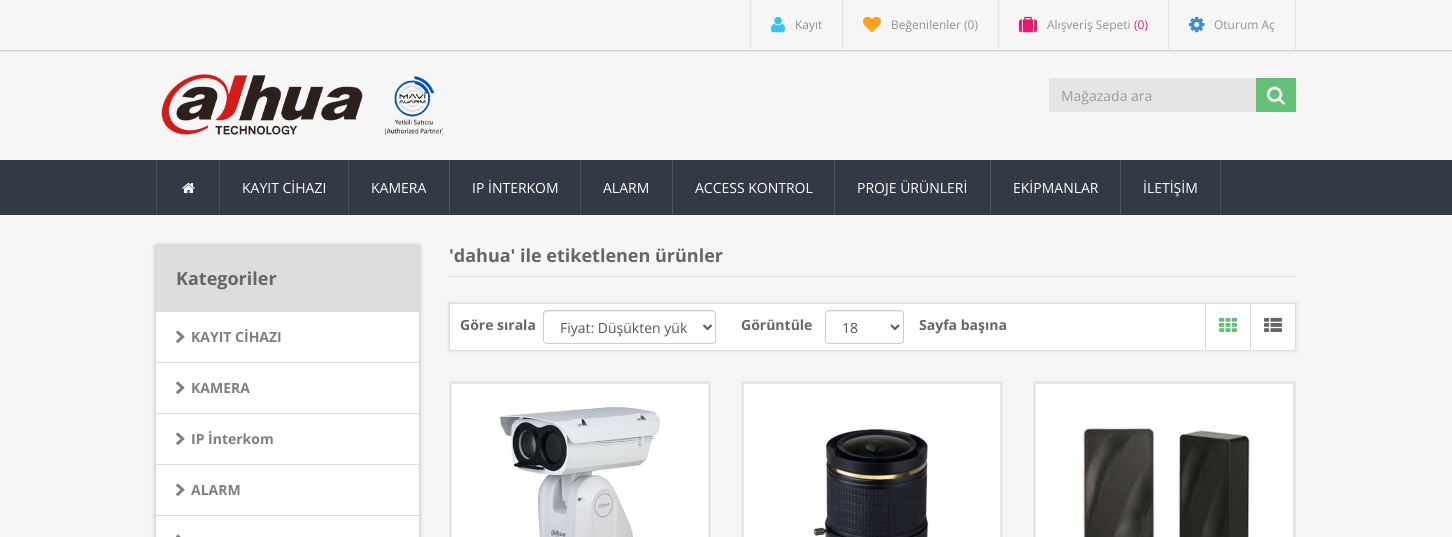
import math
import cairo

surface = cairo.ImageSurface(cairo.FORMAT_RGB24, 1452, 537)
c = cairo.Context(surface)
options = cairo.FontOptions()
options.set_hint_metrics(cairo.HINT_METRICS_OFF)
options.set_hint_style(cairo.HINT_STYLE_NONE)
c.set_font_options(options)
c.set_miter_limit(4)
def C(code):
 c.set_source_rgb(*(v / 255 for v in bytes.fromhex(code[-6:])))
def F(family, size, italic, bold):
 c.select_font_face(family, cairo.FONT_SLANT_ITALIC if italic else cairo.FONT_SLANT_NORMAL, cairo.FONT_WEIGHT_BOLD if bold else cairo.FONT_WEIGHT_NORMAL)
 c.set_font_size(size)
def T(x, y, s):
 c.move_to(x, y)
 c.show_text(s)
def R(x, y, w, h):
 c.rectangle(x, y, w, h)
 c.fill()
def Q(x, y, w, h, r):
 c.new_sub_path()
 for i, (u, v) in enumerate([(x + w - r, y + h - r), (x + r, y + h - r), (x + r, y + r), (x + w - r, y + r)]):
  c.arc(u, v, r, i * math.pi / 2, (i + 1) * math.pi / 2)
 c.close_path()
def S(x, y, w, h, r, blur, alpha):
 c.push_group_with_content(cairo.CONTENT_ALPHA)
 c.set_operator(cairo.OPERATOR_SOURCE)
 for i in range(15, -16, -2):
  e = blur * i / 6
  if min(w, h) + 2 * e > 0:
   c.set_source_rgba(0, 0, 0, alpha * math.erfc((i - 1) / 8.5) / 2)
   Q(x - e, y - e, w + 2 * e, h + 2 * e, max(0, min(r + e + blur * .6, min(w, h) / 2 + e)))
   c.fill()
 c.mask(c.pop_group())
def I(path, x, y, w, h):
 c.save()
 c.set_source_surface(cairo.ImageSurface.create_from_png(path), x, y)
 c.rectangle(x, y, w, h)
 c.fill()
 c.restore()
C('f6f6f6')
c.paint()
c.save()
c.rectangle(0,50,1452,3)
c.clip()
C('999999')
S(0,0,1452,50,0,1.5,1)
c.restore()
C('e4e4e4')
R(842,0,1,50)
R(750,0,1,50)
I('1.png',771,16,15,17)
F('Open Sans',12,0,0)
C('909090')
T(795,29,'Kayıt')
C('e4e4e4')
R(998,0,1,50)
I('2.png',863,16,18,17)
C('909090')
T(891,29,'Beğenilenler (0)')
C('e4e4e4')
R(1168,0,1,50)
I('3.png',1019,16,18,17)
C('909090')
T(1047,29,'Alışveriş Sepeti')
C('f1156c')
T(1134,29,'(0)')
C('e4e4e4')
R(1295,0,1,50)
I('4.png',1189,16,16,17)
C('909090')
T(1214,29,'Oturum Aç')
I('5.png',161,74,282,61)
C('e5e5e5')
R(1049,78,207,34)
F('Open Sans',14,0,0)
C('999999')
T(1061,101,'Mağazada ara')
C('65c178')
R(1256,78,40,34)
I('6.png',1267,86,18,19)
C('323a45')
R(0,160,1452,55)
C('4b5461')
R(219,160,1,55)
R(156,160,1,55)
I('7.png',182,183,13,10)
R(348,160,1,55)
C('ffffff')
T(242,193,'KAYIT CİHAZI')
C('4b5461')
R(449,160,1,55)
C('ffffff')
T(371,193,'KAMERA')
C('4b5461')
R(580,160,1,55)
C('ffffff')
T(472,193,'IP İNTERKOM')
C('4b5461')
R(672,160,1,55)
C('ffffff')
T(603,193,'ALARM')
C('4b5461')
R(834,160,1,55)
C('ffffff')
T(695,193,'ACCESS KONTROL')
C('4b5461')
R(990,160,1,55)
C('ffffff')
T(857,193,'PROJE ÜRÜNLERİ')
C('4b5461')
R(1120,160,1,55)
C('ffffff')
T(1013,193,'EKİPMANLAR')
C('4b5461')
R(1220,160,1,55)
C('ffffff')
T(1143,193,'İLETİŞİM')
C('aaaaaa')
S(156,246,263,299,0,2.5,1)
C('ffffff')
R(156,312,263,225)
C('dddddd')
R(156,246,263,66)
F('Open Sans',18,0,1)
C('666666')
T(176,285,'Kategoriler')
I('8.png',176,330,9,13)
C('dddddd')
R(156,362,263,1)
F('Open Sans',14,0,1)
C('807f7f')
T(191,342,'KAYIT CİHAZI')
I('8.png',176,381,9,13)
C('dddddd')
R(156,413,263,1)
C('807f7f')
T(191,393,'KAMERA')
I('8.png',176,432,9,13)
C('dddddd')
R(156,464,263,1)
C('807f7f')
T(191,444,'IP İnterkom')
I('8.png',176,483,9,13)
C('dddddd')
R(156,515,263,1)
C('807f7f')
T(191,495,'ALARM')
I('9.png',176,534,5,3)
C('dddddd')
R(449,276,847,1)
F('Open Sans',18,0,1)
C('666666')
T(449,262,'\'dahua\' ile etiketlenen ürünler')
C('dddddd')
S(449,303,847,48,0,2.5,1)
C('ffffff')
c.rectangle(449.5,303.5,846,47)
c.fill_preserve()
C('dddddd')
c.set_line_width(1)
c.stroke()
F('Open Sans',14,0,1)
C('666666')
T(460,330,'Göre sırala')
C('ececec')
c.new_path()
c.move_to(547,312)
c.line_to(712,312)
c.curve_to(714,312,715,313,715,315)
c.line_to(715,314)
c.curve_to(715,312,714,311,712,311)
c.line_to(547,311)
c.curve_to(545,311,544,312,544,314)
c.line_to(544,315)
c.curve_to(544,313,545,312,547,312)
c.close_path()
c.fill()
Q(543.5,310.5,172,33,3.5)
C('cccccc')
c.stroke()
c.new_path()
c.move_to(703.5,325)
c.line_to(707.5,329)
c.line_to(711.5,325)
C('555555')
c.set_line_width(2)
c.stroke()
F('Open Sans',14,0,0)
T(560,333,'Fiyat: Düşükten yük')
F('Open Sans',14,0,1)
C('666666')
T(741,330,'Görüntüle')
C('ececec')
c.new_path()
c.move_to(829,312)
c.line_to(900,312)
c.curve_to(902,312,903,313,903,315)
c.curve_to(903,308,892,311,888,311)
c.line_to(841,311)
c.curve_to(837,311,826,308,826,315)
c.curve_to(826,313,827,312,829,312)
c.close_path()
c.fill()
Q(825.5,310.5,78,33,3.5)
C('cccccc')
c.set_line_width(1)
c.stroke()
c.new_path()
c.move_to(891,325)
c.line_to(895,329)
c.line_to(899,325)
C('555555')
c.set_line_width(2)
c.stroke()
F('Open Sans',14,0,0)
T(842,333,'18')
F('Open Sans',14,0,1)
C('666666')
T(919,330,'Sayfa başına')
C('dddddd')
R(1205,304,1,46)
I('10.png',1219,317,18,15)
R(1250,304,1,46)
I('11.png',1264,317,18,15)
C('ffffff')
c.rectangle(450.5,382.5,259,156)
c.fill_preserve()
C('e7e7e7')
c.set_line_width(3)
c.stroke()
I('12.png',499,404,163,133)
C('ffffff')
c.rectangle(742.5,382.5,259,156)
c.fill_preserve()
C('e7e7e7')
c.stroke()
I('13.png',813,428,117,109)
C('ffffff')
c.rectangle(1034.5,382.5,260,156)
c.fill_preserve()
C('e7e7e7')
c.stroke()
I('14.png',1079,424,173,113)
surface.write_to_png('o.png')
